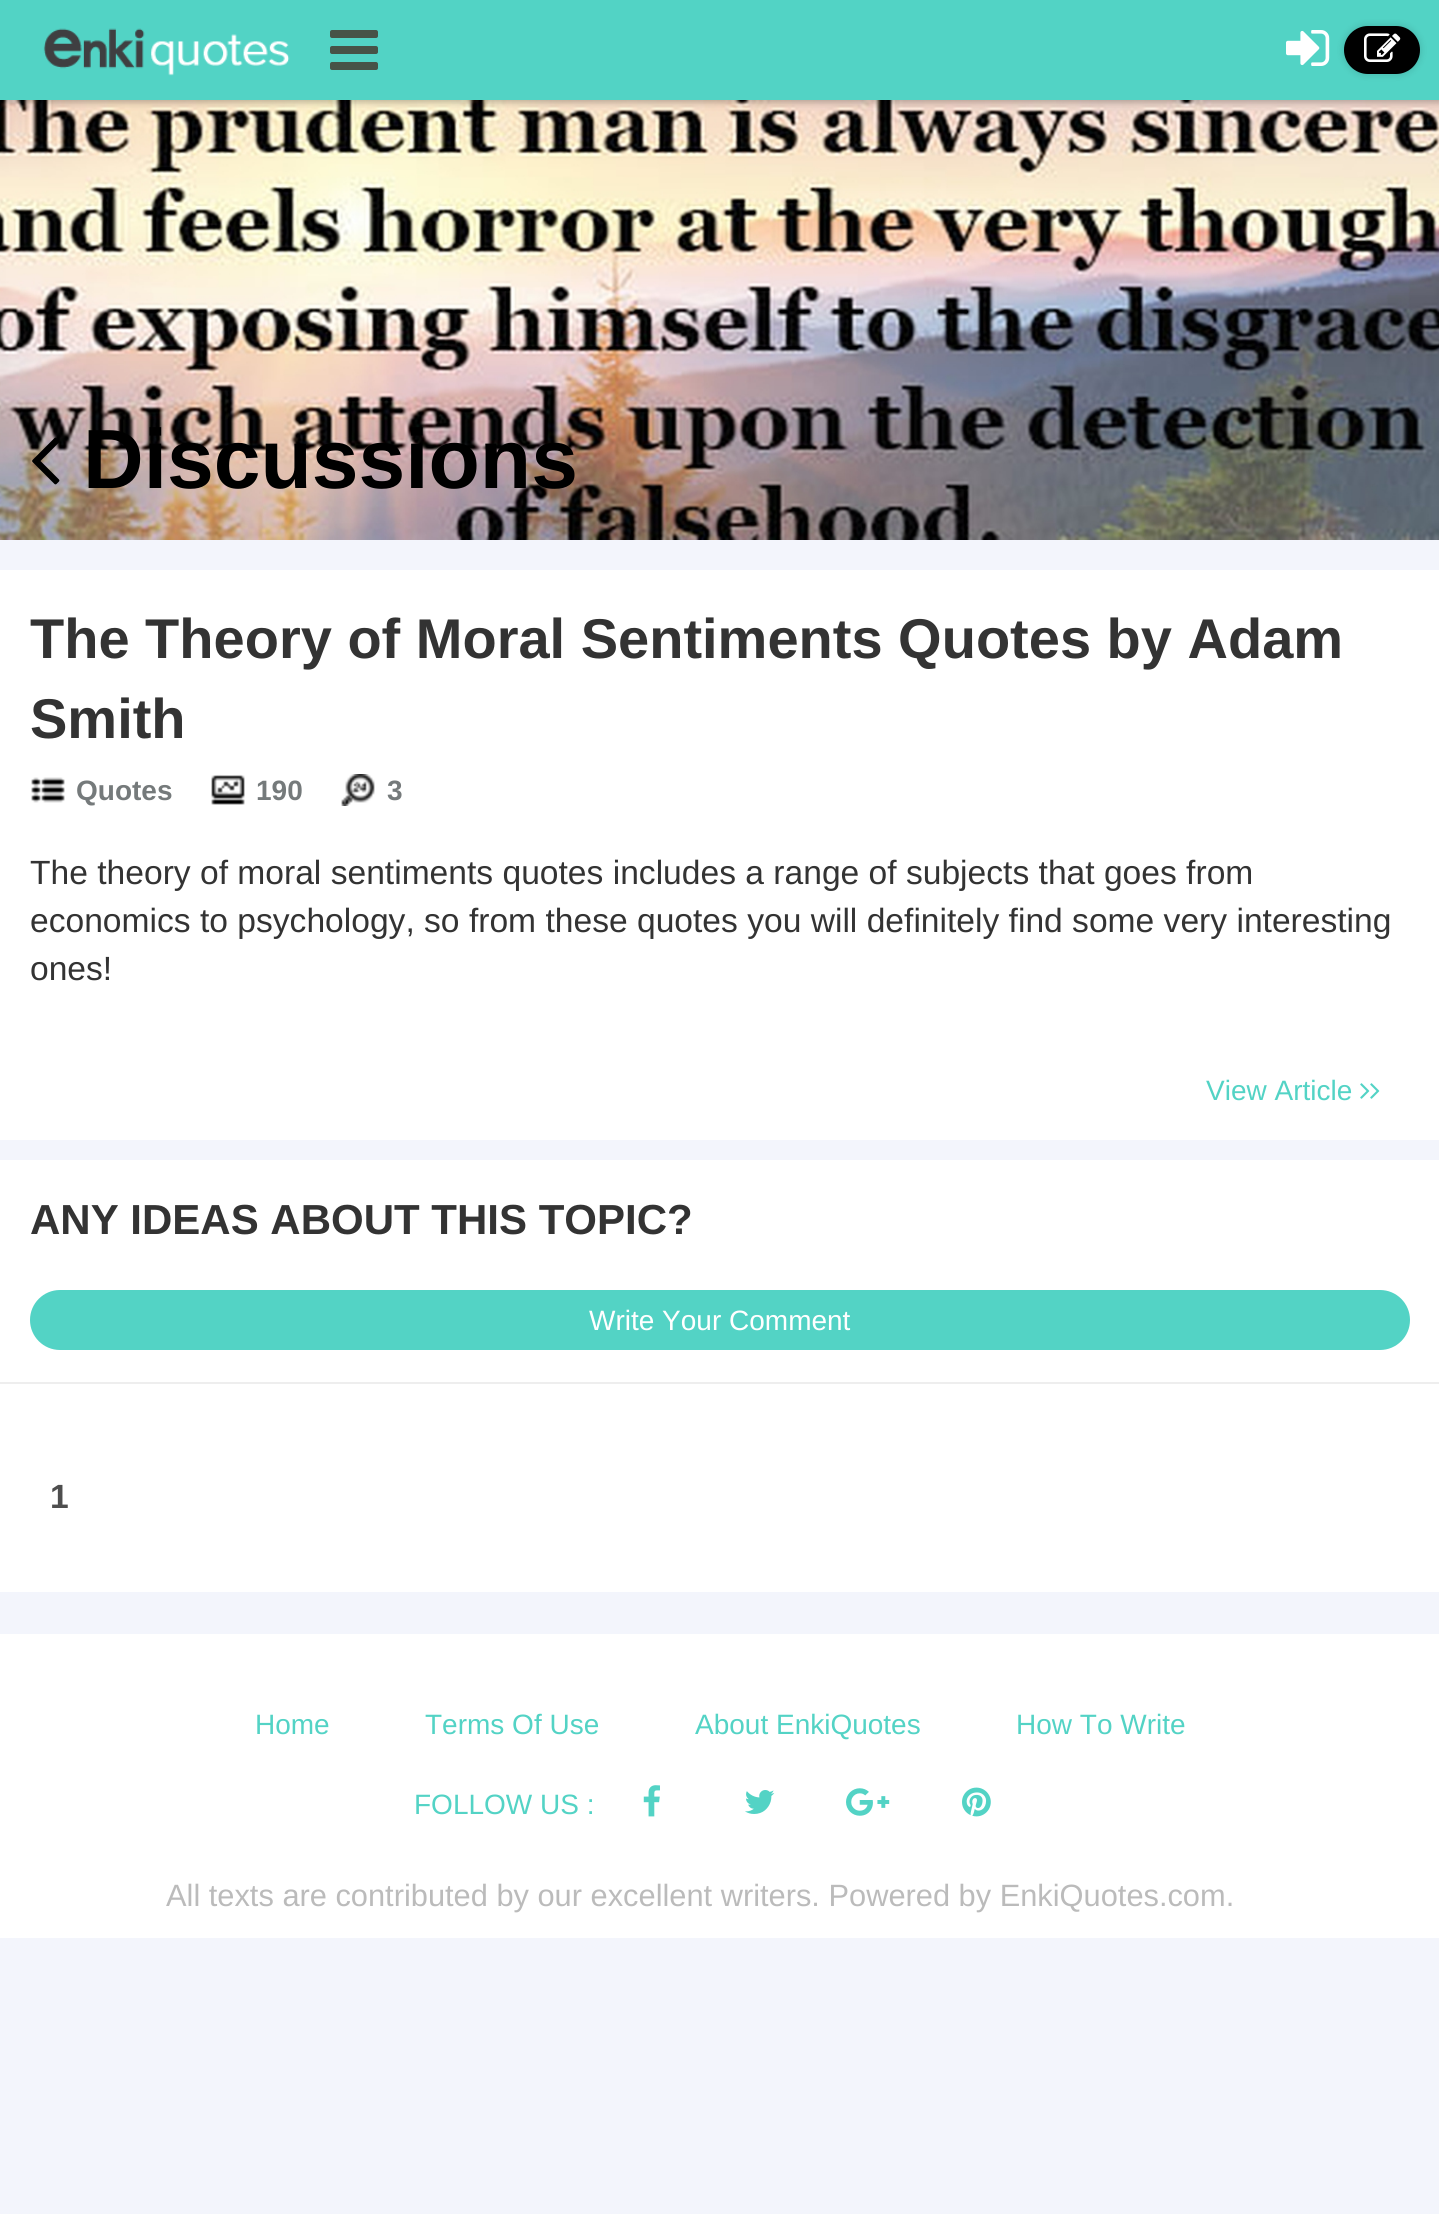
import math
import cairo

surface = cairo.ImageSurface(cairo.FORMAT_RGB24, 1439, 2214)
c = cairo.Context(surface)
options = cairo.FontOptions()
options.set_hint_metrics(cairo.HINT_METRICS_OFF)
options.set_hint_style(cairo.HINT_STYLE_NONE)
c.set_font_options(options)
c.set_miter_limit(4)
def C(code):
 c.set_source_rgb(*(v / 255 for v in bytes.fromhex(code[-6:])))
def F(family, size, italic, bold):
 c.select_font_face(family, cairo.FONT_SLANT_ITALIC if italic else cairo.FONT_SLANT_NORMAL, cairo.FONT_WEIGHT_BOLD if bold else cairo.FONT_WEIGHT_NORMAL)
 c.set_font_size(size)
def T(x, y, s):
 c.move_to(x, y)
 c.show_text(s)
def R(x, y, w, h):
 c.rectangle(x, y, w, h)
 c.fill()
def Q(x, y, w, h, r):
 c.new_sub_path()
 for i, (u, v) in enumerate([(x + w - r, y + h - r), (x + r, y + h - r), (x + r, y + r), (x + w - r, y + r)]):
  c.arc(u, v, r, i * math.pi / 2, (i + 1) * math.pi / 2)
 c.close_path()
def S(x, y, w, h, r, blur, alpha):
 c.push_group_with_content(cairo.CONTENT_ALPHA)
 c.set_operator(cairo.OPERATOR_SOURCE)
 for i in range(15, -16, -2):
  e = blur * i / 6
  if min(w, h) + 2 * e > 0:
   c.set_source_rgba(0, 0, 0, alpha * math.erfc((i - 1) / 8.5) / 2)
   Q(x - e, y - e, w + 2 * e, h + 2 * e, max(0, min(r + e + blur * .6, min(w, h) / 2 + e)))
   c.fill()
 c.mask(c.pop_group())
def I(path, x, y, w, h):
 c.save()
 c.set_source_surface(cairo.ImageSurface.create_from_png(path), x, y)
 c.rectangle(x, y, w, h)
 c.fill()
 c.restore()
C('f3f5fc')
c.paint()
I('5.png',0,100,1439,440)
C('000000')
S(0,2,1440,100,0,4,.3)
C('52d3c5')
R(0,0,1439,100)
I('1.png',43,28,247,48)
I('2.png',330,30,48,40)
I('3.png',1286,30,44,36)
C('000000')
S(1342,24,80,52,26,3,.1)
C('000000')
Q(1344,26,76,48,24)
c.fill()
I('4.png',1364,33,37,29)
I('6.png',32,437,28,48)
F('Liberation Sans',84,0,1)
T(83,488,'Discussions')
C('ffffff')
R(0,570,1439,570)
F('Liberation Sans',56,0,1)
C('333333')
T(30,658,'The Theory of Moral Sentiments Quotes by Adam')
T(30,738,'Smith')
I('7.png',31,777,34,26)
F('Liberation Sans',28,0,1)
C('757a7b')
T(76,800,'Quotes')
I('8.png',211,774,34,31)
T(256,800,'190')
I('9.png',341,774,34,32)
T(387,800,'3')
F('Liberation Sans',33.6,0,0)
C('333333')
T(30,884,'The theory of moral sentiments quotes includes a range of subjects that goes from')
T(30,932,'economics to psychology, so from these quotes you will definitely find some very interesting')
T(30,980,'ones!')
F('Liberation Sans',28,0,0)
C('53d3c5')
T(1206,1100,'View Article')
I('10.png',1360,1083,10,16)
I('10.png',1370,1083,10,16)
C('ffffff')
R(0,1160,1439,432)
F('Liberation Sans',42,0,1)
C('333333')
T(30,1234,'ANY IDEAS ABOUT THIS TOPIC?')
C('53d3c5')
Q(30,1290,1380,60,30)
c.fill()
F('Liberation Sans',28,0,0)
C('ffffff')
T(589,1330,'Write Your Comment')
C('eeeeee')
R(0,1382,1439,2)
F('Liberation Sans',33.6,0,1)
C('4e4e4e')
T(50,1508,'1')
C('ffffff')
R(0,1634,1439,304)
F('Liberation Sans',28,0,0)
C('53d3c5')
T(255,1734,'Home')
T(425,1734,'Terms Of Use')
T(695,1734,'About EnkiQuotes')
T(1016,1734,'How To Write')
T(414,1814,'FOLLOW US :')
I('11.png',643,1785,17,32)
I('12.png',745,1790,30,24)
I('13.png',846,1788,44,28)
I('14.png',962,1787,29,30)
F('Liberation Sans',30.8,0,0)
C('bbbbbb')
T(166,1906,'All texts are contributed by our excellent writers. Powered by EnkiQuotes.com.')
surface.write_to_png('o.png')
